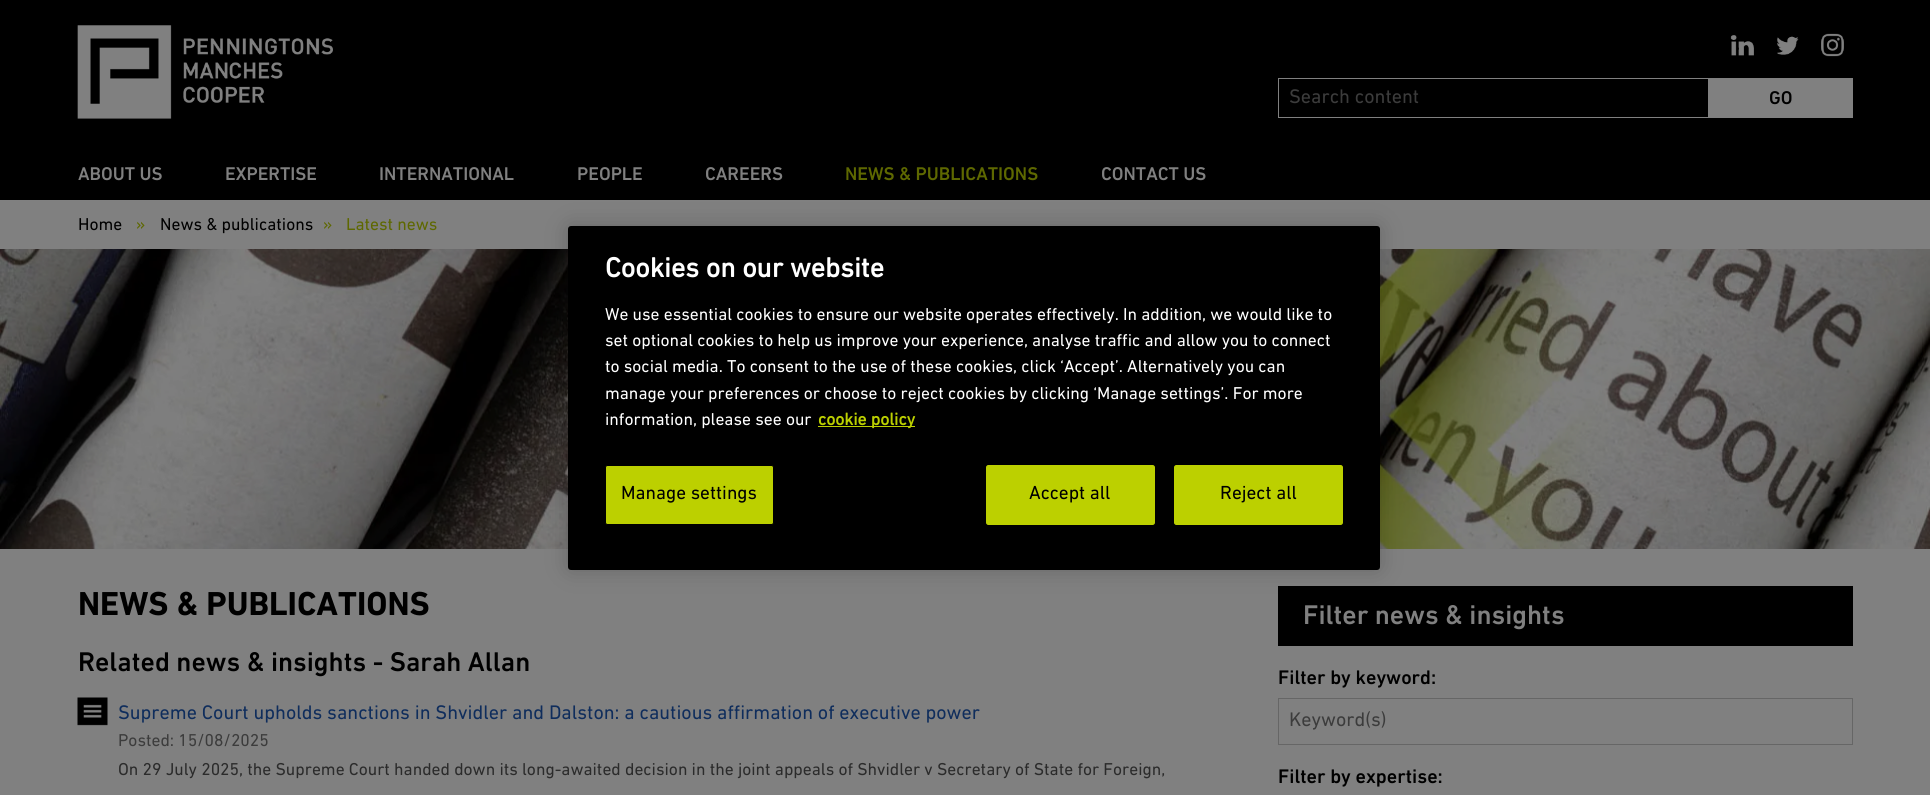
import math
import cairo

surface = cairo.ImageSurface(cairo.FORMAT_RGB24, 1930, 795)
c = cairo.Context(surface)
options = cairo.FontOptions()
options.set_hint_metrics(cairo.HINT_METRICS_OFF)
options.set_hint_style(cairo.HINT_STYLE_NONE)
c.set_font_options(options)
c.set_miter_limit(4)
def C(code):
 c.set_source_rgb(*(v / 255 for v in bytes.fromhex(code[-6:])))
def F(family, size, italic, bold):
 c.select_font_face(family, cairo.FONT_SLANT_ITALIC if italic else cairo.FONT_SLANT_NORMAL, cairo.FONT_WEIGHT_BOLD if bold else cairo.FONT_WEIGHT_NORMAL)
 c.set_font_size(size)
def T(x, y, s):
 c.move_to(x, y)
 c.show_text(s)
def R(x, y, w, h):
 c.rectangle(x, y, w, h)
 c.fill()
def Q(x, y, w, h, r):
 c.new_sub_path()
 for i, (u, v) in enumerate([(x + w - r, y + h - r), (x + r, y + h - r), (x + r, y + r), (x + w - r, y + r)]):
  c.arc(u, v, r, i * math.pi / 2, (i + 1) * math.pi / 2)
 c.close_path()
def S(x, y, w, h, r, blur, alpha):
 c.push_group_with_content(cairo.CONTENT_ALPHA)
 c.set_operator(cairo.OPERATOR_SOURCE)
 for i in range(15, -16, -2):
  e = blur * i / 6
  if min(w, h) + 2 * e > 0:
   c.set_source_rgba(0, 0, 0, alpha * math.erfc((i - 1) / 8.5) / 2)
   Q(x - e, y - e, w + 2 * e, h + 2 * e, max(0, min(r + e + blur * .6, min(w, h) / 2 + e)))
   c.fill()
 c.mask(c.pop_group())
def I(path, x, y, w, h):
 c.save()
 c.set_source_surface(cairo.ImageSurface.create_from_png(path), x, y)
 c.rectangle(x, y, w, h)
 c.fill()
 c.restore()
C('808080')
c.paint()
C('000000')
R(0,0,1930,200)
I('1.png',77,25,256,94)
I('2.png',1730,35,24,21)
I('3.png',1777,36,22,19)
I('4.png',1821,33,23,24)
c.rectangle(1278.5,78.5,430,39)
C('808080')
c.set_line_width(1)
c.stroke()
F('DIN Next',20,0,0)
C('3c3c3c')
T(1289,103,'Search content')
C('808080')
R(1709,78,144,40)
F('DIN Next Medium',18.75,0,0)
C('000000')
T(1769,104,'GO')
C('808080')
T(78,180,'ABOUT US')
T(225,180,'EXPERTISE')
T(379,180,'INTERNATIONAL')
T(577,180,'PEOPLE')
T(705,180,'CAREERS')
C('5e6800')
T(845,180,'NEWS & PUBLICATIONS')
C('808080')
T(1101,180,'CONTACT US')
F('DIN Next',17.5,0,0)
C('000000')
T(78,230,'Home')
C('5e6800')
T(136,230,'»')
C('000000')
T(160,230,'News & publications')
C('5e6800')
T(323,230,'»')
T(346,230,'Latest news')
I('5.png',0,249,1930,300)
C('000000')
R(1278,586,575,60)
C('000000')
S(568,226,812,344,3,11,.2)
C('000000')
Q(568,226,812,344,3)
c.fill()
F('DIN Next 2',28,0,1)
C('ffffff')
T(605,277,'Cookies on our website')
F('DIN Next',17.5,0,0)
T(605,320,'We use essential cookies to ensure our website operates effectively. In addition, we would like to')
T(605,346,'set optional cookies to help us improve your experience, analyse traffic and allow you to connect')
T(605,372,'to social media. To consent to the use of these cookies, click ‘Accept’. Alternatively you can')
T(605,399,'manage your preferences or choose to reject cookies by clicking ‘Manage settings’. For more')
T(605,425,'information, please see our')
C('bcd000')
R(818,426,97,1)
F('DIN Next 2',17.5,0,1)
T(818,425,'cookie policy')
Q(605.5,465.5,168,59,2)
c.fill_preserve()
C('000000')
c.stroke()
F('DIN Next',19.25,0,0)
T(621,499,'Manage settings')
C('bcd000')
Q(986.5,465.5,168,59,2)
c.fill_preserve()
c.stroke()
C('000000')
T(1029,499,'Accept all')
C('bcd000')
Q(1174.5,465.5,168,59,2)
c.fill_preserve()
c.stroke()
C('000000')
T(1220,499,'Reject all')
F('DIN Next',33.75,0,1)
T(78,615,'NEWS & PUBLICATIONS')
F('DIN Next Medium',27.5,0,0)
T(78,671,'Related news & insights - Sarah Allan')
I('6.png',77,697,31,29)
F('DIN Next',20,0,0)
C('0f2d5c')
T(118,719,'Supreme Court upholds sanctions in Shvidler and Dalston: a cautious affirmation of executive power')
F('DIN Next',17.5,0,0)
C('3c3c3c')
T(118,746,'Posted: 15/08/2025')
C('2b2b2b')
T(118,775,'On 29 July 2025, the Supreme Court handed down its long-awaited decision in the joint appeals of Shvidler v Secretary of State for Foreign,')
F('DIN Next Medium',27.5,0,0)
C('808080')
T(1303,624,'Filter news & insights')
F('DIN Next Medium',20,0,0)
C('000000')
T(1278,684,'Filter by keyword:')
c.rectangle(1278.5,698.5,574,46)
C('666666')
c.stroke()
F('DIN Next',20,0,0)
C('3c3c3c')
T(1289,726,'Keyword(s)')
F('DIN Next Medium',20,0,0)
C('000000')
T(1278,783,'Filter by expertise:')
surface.write_to_png('o.png')
